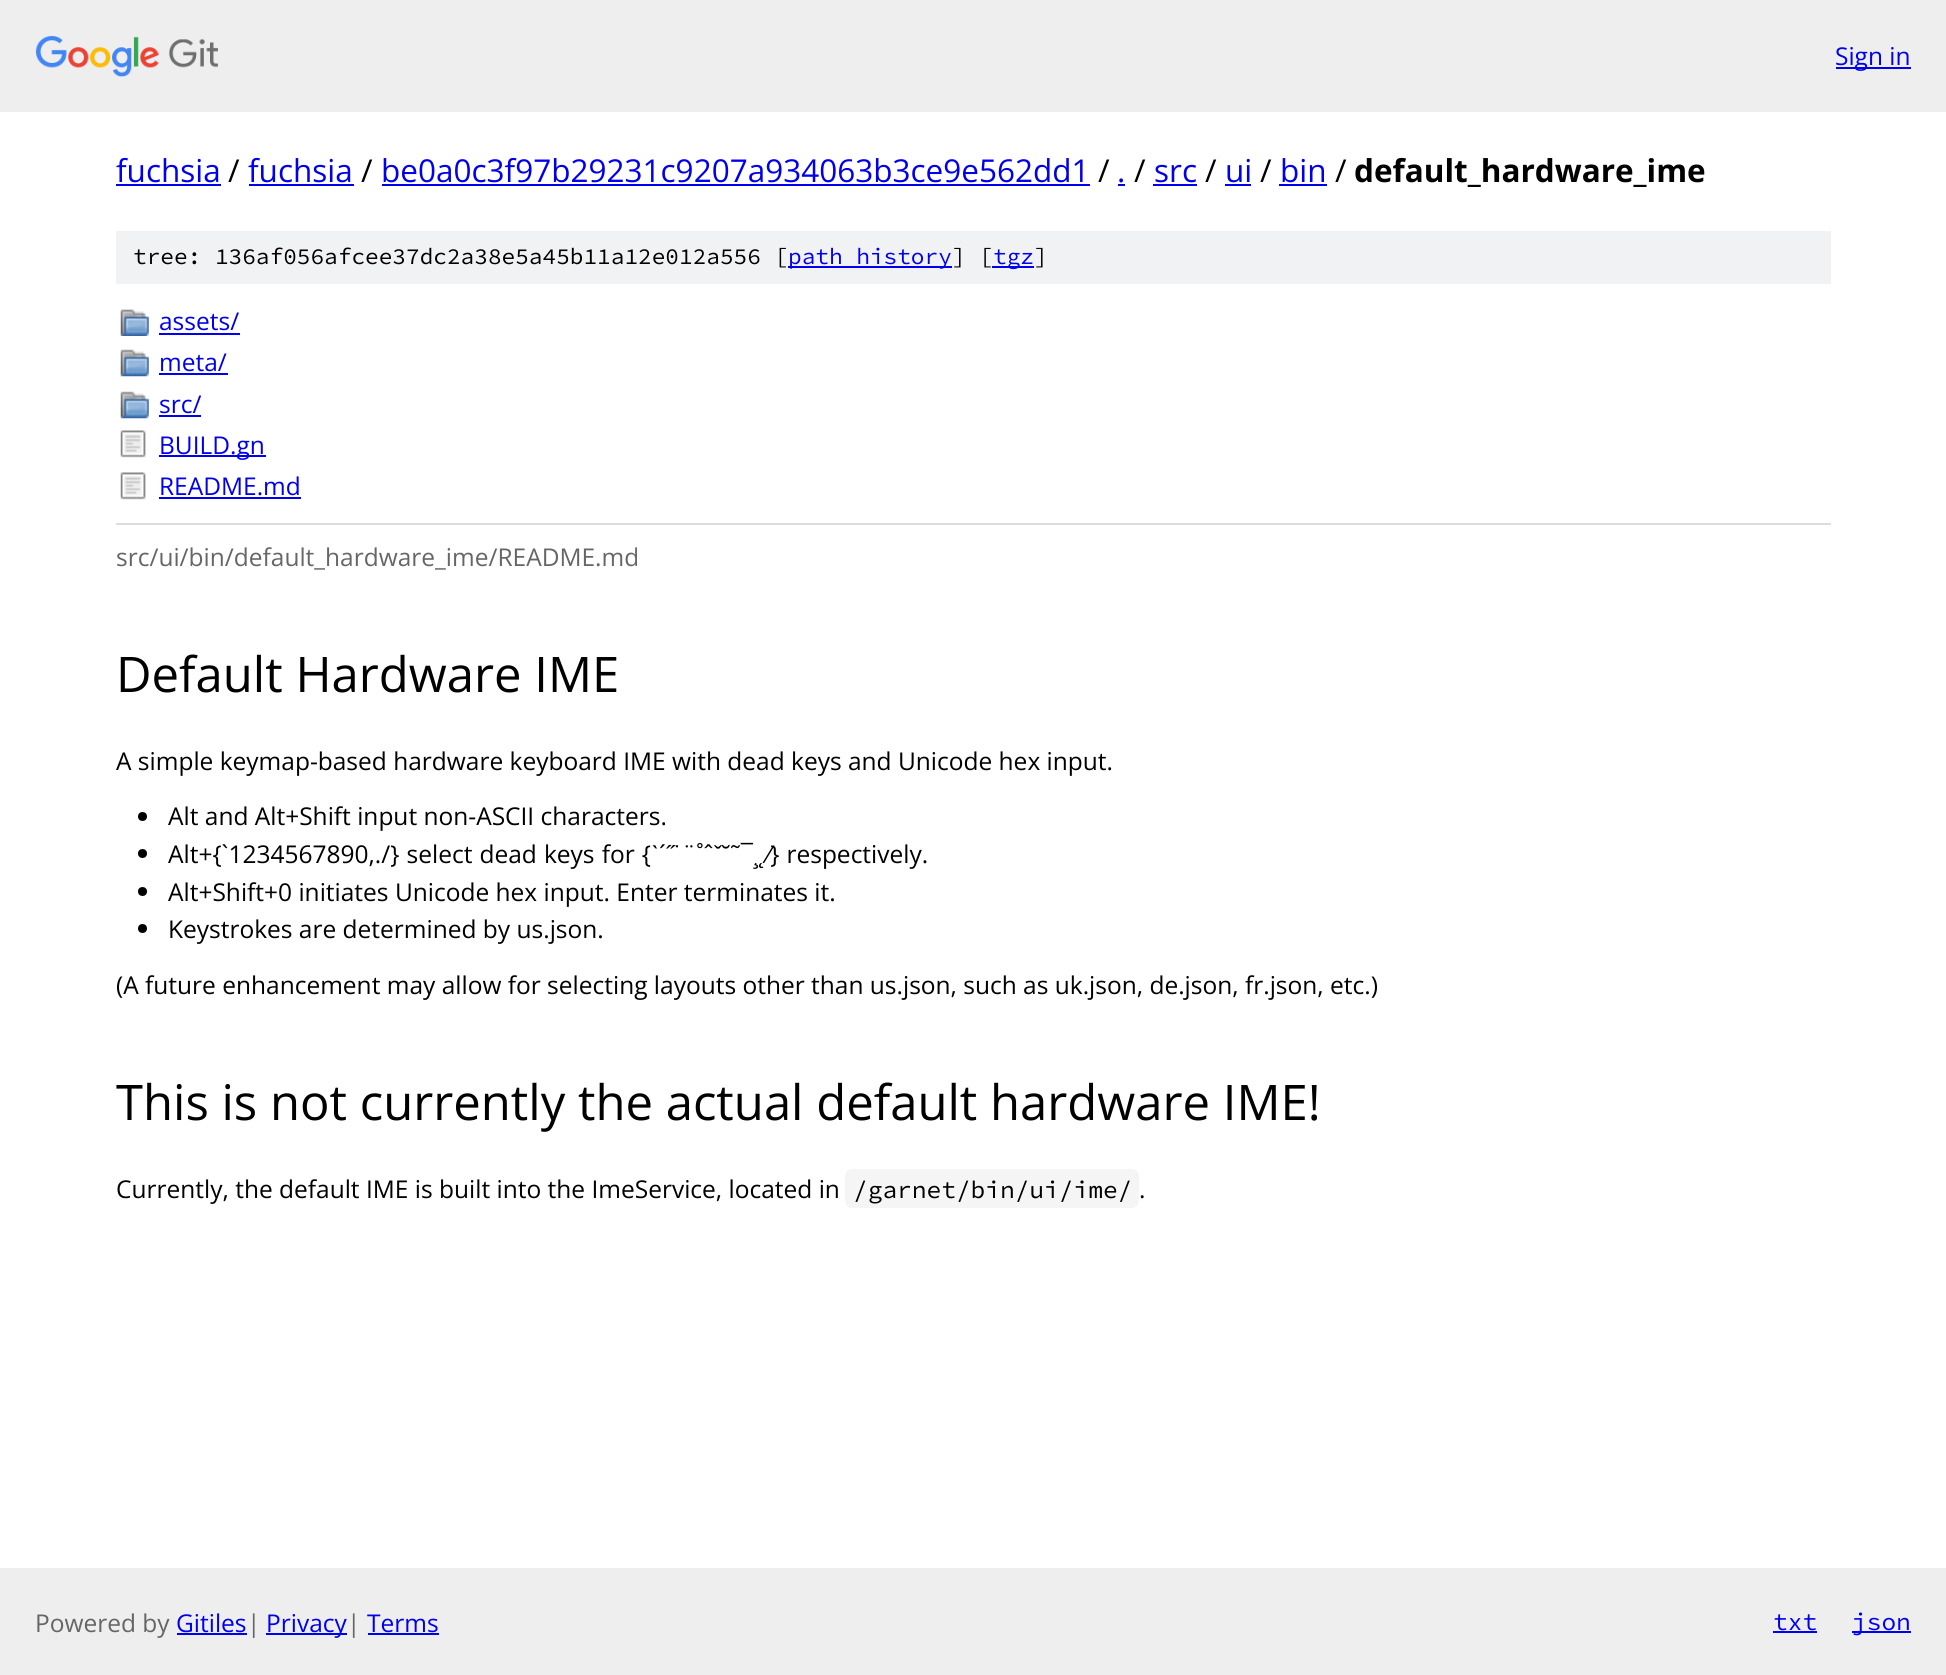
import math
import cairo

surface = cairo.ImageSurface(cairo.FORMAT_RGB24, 1946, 1675)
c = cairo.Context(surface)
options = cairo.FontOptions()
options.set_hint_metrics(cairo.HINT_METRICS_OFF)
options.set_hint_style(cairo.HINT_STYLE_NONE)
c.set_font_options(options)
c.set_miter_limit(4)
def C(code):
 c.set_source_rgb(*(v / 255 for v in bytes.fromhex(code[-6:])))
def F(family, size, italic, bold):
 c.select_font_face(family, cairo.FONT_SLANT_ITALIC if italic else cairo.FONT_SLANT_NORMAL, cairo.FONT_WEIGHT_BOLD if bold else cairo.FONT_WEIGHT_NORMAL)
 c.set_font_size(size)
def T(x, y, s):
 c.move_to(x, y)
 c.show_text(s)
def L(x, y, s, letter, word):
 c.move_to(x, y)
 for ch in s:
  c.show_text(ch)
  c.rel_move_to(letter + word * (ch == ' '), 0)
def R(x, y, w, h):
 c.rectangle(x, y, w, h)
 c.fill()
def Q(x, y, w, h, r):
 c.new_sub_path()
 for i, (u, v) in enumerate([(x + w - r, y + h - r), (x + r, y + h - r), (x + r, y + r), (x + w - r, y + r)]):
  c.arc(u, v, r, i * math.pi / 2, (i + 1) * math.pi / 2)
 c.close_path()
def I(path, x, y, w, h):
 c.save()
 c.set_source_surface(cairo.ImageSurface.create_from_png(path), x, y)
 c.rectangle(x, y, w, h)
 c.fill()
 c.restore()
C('ffffff')
c.paint()
C('eeeeee')
R(0,0,1946,112)
I('1.png',35,35,183,42)
C('0000ee')
R(1836,67,75,2)
F('Open Sans',24.5,0,0)
T(1835,65,'Sign in')
F('Open Sans',31.5,0,0)
T(116,182,'fuchsia')
R(116,184,105,2)
C('000000')
T(228,182,'/')
C('0000ee')
T(248,182,'fuchsia')
R(249,184,105,2)
C('000000')
T(361,182,'/')
C('0000ee')
T(381,182,'be0a0c3f97b29231c9207a934063b3ce9e562dd1')
R(382,184,708,2)
C('000000')
T(1098,182,'/')
C('0000ee')
T(1117,182,'.')
R(1118,184,7,2)
C('000000')
T(1134,182,'/')
C('0000ee')
T(1154,182,'src')
R(1153,184,44,2)
C('000000')
T(1205,182,'/')
C('0000ee')
T(1225,182,'ui')
R(1225,184,26,2)
C('000000')
T(1260,182,'/')
C('0000ee')
T(1280,182,'bin')
R(1279,184,48,2)
C('000000')
T(1335,182,'/')
F('Open Sans',31.5,0,1)
T(1354,182,'default_hardware_ime')
C('f1f2f3')
R(116,231,1715,53)
F('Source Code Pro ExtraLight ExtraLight',22.75,0,0)
C('000000')
T(133,264,'tree: 136af056afcee37dc2a38e5a45b11a12e012a556 [')
C('0000ee')
R(788,266,164,2)
T(788,264,'path history')
C('000000')
T(952,264,'] [')
C('0000ee')
R(992,266,42,2)
T(993,264,'tgz')
C('000000')
T(1034,264,']')
I('2.png',120,309,29,27)
F('Open Sans',24.5,0,0)
C('0000ee')
T(159,330,'assets/')
R(159,333,81,2)
I('3.png',120,349,29,28)
T(159,371,'meta/')
R(159,373,69,2)
I('3.png',120,391,29,28)
T(159,413,'src/')
R(159,415,42,2)
I('4.png',120,430,26,28)
R(159,455,107,2)
T(159,454,'BUILD.gn')
I('4.png',120,472,26,28)
T(159,495,'README.md')
R(159,497,142,2)
C('dddddd')
R(116,523,1715,2)
C('666666')
T(116,566,'src/ui/bin/default_hardware_ime/README.md')
F('Open Sans',49,0,0)
C('000000')
T(116,692,'Default Hardware IME')
F('Open Sans',24.5,0,0)
T(116,770,'A simple keymap-based hardware keyboard IME with dead keys and Unicode hex input.')
c.new_path()
c.arc(142.5,816.5,4.5,0,2 * math.pi)
c.fill()
T(168,825,'Alt and Alt+Shift input non-ASCII characters.')
L(168,863,'Alt+{`1234567890,./} select dead keys for {',0,.75)
F('Liberation Sans',24.5,0,0)
T(651,863,'ˋ ˝˙')
F('Open Sans',24.5,0,0)
T(682,863,'¨˚ˆ')
T(730,863,'˜¯¸')
c.new_path()
c.arc(142.5,853.5,4.5,0,2 * math.pi)
c.fill()
T(659,863,'´')
F('Liberation Sans',24.5,0,0)
T(714,863,'ˇ˘')
T(758,863,'˛')
F('Open Sans',24.5,0,0)
L(767,863,'⁄} respectively.',0,.75)
c.new_path()
c.arc(142.5,891.5,4.5,0,2 * math.pi)
c.fill()
T(168,901,'Alt+Shift+0 initiates Unicode hex input. Enter terminates it.')
c.new_path()
c.arc(142.5,928.5,4.5,0,2 * math.pi)
c.fill()
T(168,938,'Keystrokes are determined by us.json.')
T(116,994,'(A future enhancement may allow for selecting layouts other than us.json, such as uk.json, de.json, fr.json, etc.)')
F('Open Sans',49,0,0)
T(116,1120,'This is not currently the actual default hardware IME!')
F('Open Sans',24.5,0,0)
T(116,1198,'Currently, the default IME is built into the ImeService, located in')
C('f5f5f5')
Q(845,1169,294,39,7)
c.fill()
F('Source Code Pro ExtraLight ExtraLight',24.5,0,0)
C('000000')
T(853,1198,'/garnet/bin/ui/ime/')
F('Open Sans',24.5,0,0)
T(1139,1198,'.')
C('eeeeee')
R(0,1568,1946,107)
C('666666')
T(35,1632,'Powered by')
C('0000ee')
T(176,1632,'Gitiles')
R(177,1633,70,2)
C('666666')
T(247,1632,'|')
C('0000ee')
R(266,1633,81,2)
T(266,1632,'Privacy')
C('666666')
T(347,1632,'|')
C('0000ee')
T(367,1632,'Terms')
R(368,1633,71,2)
F('Source Code Pro ExtraLight ExtraLight',24.5,0,0)
T(1773,1630,'txt')
R(1773,1631,44,2)
R(1852,1631,59,2)
T(1852,1630,'json')
surface.write_to_png('o.png')
